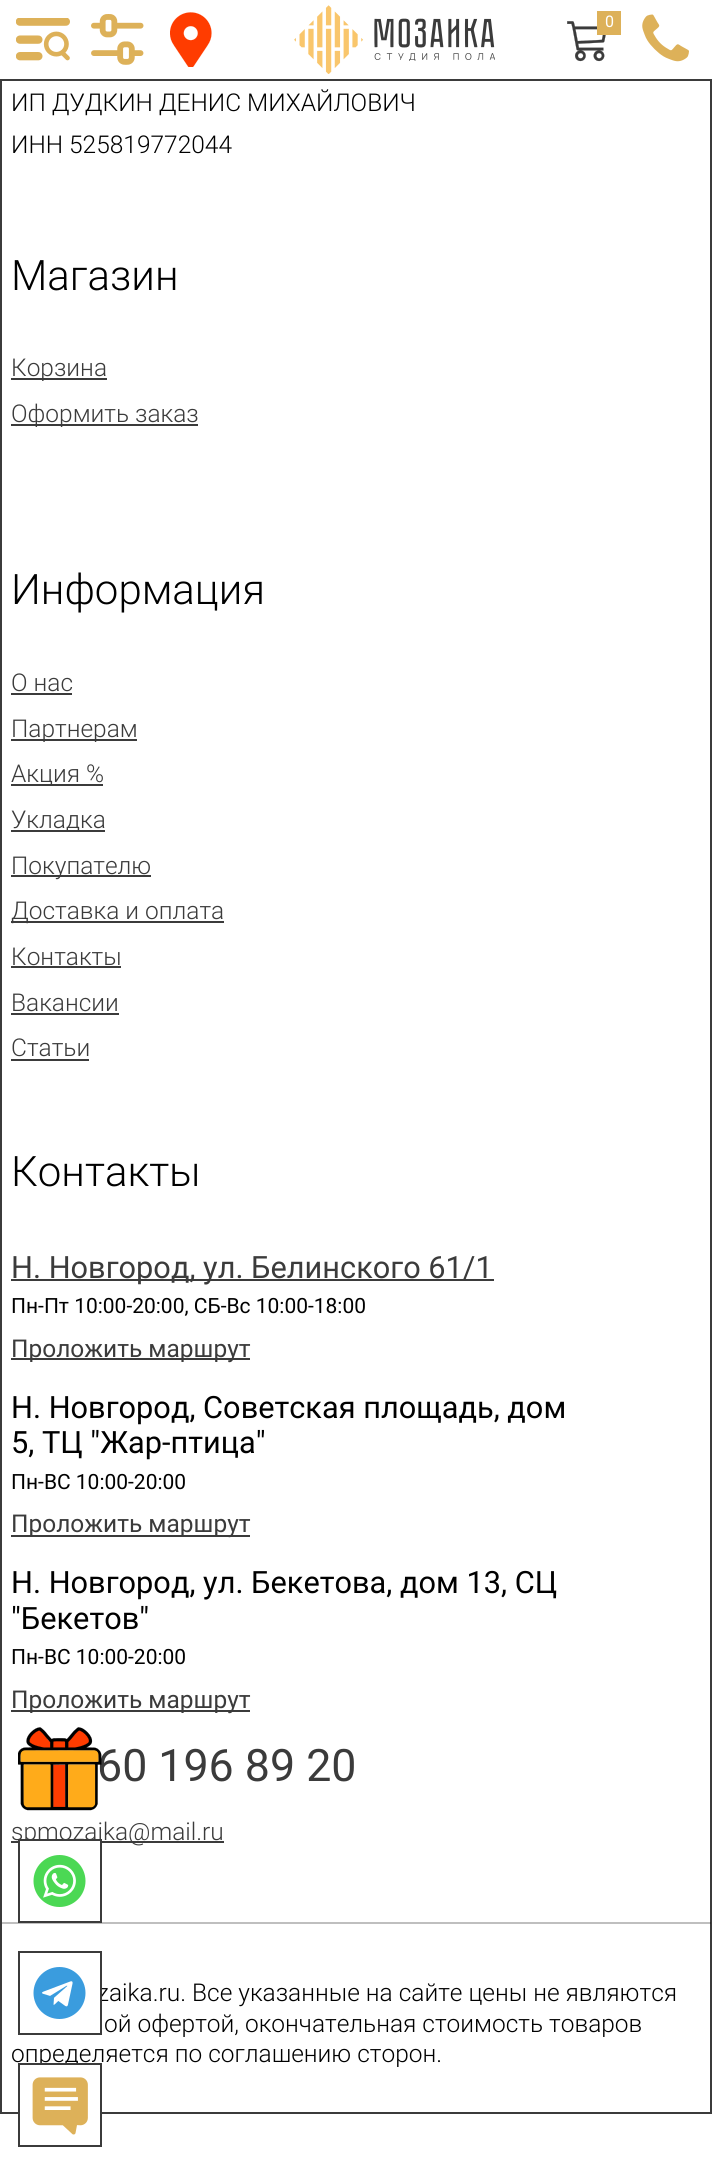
import math
import cairo

surface = cairo.ImageSurface(cairo.FORMAT_RGB24, 712, 2173)
c = cairo.Context(surface)
options = cairo.FontOptions()
options.set_hint_metrics(cairo.HINT_METRICS_OFF)
options.set_hint_style(cairo.HINT_STYLE_NONE)
c.set_font_options(options)
c.set_miter_limit(4)
def C(code):
 c.set_source_rgb(*(v / 255 for v in bytes.fromhex(code[-6:])))
def F(family, size, italic, bold):
 c.select_font_face(family, cairo.FONT_SLANT_ITALIC if italic else cairo.FONT_SLANT_NORMAL, cairo.FONT_WEIGHT_BOLD if bold else cairo.FONT_WEIGHT_NORMAL)
 c.set_font_size(size)
def T(x, y, s):
 c.move_to(x, y)
 c.show_text(s)
def R(x, y, w, h):
 c.rectangle(x, y, w, h)
 c.fill()
def I(path, x, y, w, h):
 c.save()
 c.set_source_surface(cairo.ImageSurface.create_from_png(path), x, y)
 c.rectangle(x, y, w, h)
 c.fill()
 c.restore()
C('ffffff')
c.paint()
c.rectangle(1,-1,710,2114)
C('3b3b3b')
c.stroke()
C('ffffff')
R(0,0,712,79)
C('3b3b3b')
R(0,79,712,2)
I('1.png',16,18,54,43)
I('2.png',91,14,53,51)
I('3.png',170,12,42,55)
I('4.png',294,5,201,69)
I('5.png',567,21,39,41)
C('ddb159')
R(597,11,24,24)
F('Roboto',16,0,0)
C('ffffff')
T(605,27,'0')
I('6.png',642,14,47,48)
F('Roboto Light',24.5,0,0)
C('000000')
T(11,111,'ИП ДУДКИН ДЕНИС МИХАЙЛОВИЧ')
T(11,153,'ИНН 525819772044')
F('Roboto Light',42,0,0)
T(11,290,'Магазин')
C('3b3b3b')
R(11,378,96,2)
F('Roboto Light',24.5,0,0)
T(11,376,'Корзина')
R(11,424,187,2)
T(11,422,'Оформить заказ')
F('Roboto Light',42,0,0)
C('000000')
T(11,604,'Информация')
F('Roboto Light',24.5,0,0)
C('3b3b3b')
T(11,691,'О нас')
R(11,693,61,2)
R(11,739,126,2)
T(11,737,'Партнерам')
R(11,784,92,2)
T(11,782,'Акция %')
R(11,830,94,2)
T(11,828,'Укладка')
R(11,875,140,2)
T(11,874,'Покупателю')
R(11,921,213,2)
T(11,919,'Доставка и оплата')
T(11,965,'Контакты')
R(11,966,110,2)
T(11,1011,'Вакансии')
R(11,1013,108,2)
T(11,1056,'Статьи')
R(11,1059,78,2)
F('Roboto Light',42,0,0)
C('000000')
T(11,1186,'Контакты')
C('3b3b3b')
R(11,1279,483,2)
F('Roboto',30.75,0,0)
T(11,1278,'Н. Новгород, ул. Белинского 61/1')
F('Roboto',21,0,0)
C('000000')
T(11,1313,'Пн-Пт 10:00-20:00, СБ-Вс 10:00-18:00')
C('3b3b3b')
R(11,1358,239,2)
F('Roboto',24.5,0,0)
T(11,1357,'Проложить маршрут')
F('Roboto',30.75,0,0)
C('000000')
T(11,1418,'Н. Новгород, Советская площадь, дом')
T(11,1453,'5, ТЦ "Жар-птица"')
F('Roboto',21,0,0)
T(11,1489,'Пн-ВС 10:00-20:00')
C('3b3b3b')
R(11,1535,239,2)
F('Roboto',24.5,0,0)
T(11,1532,'Проложить маршрут')
F('Roboto',30.75,0,0)
C('000000')
T(11,1593,'Н. Новгород, ул. Бекетова, дом 13, СЦ')
T(11,1629,'"Бекетов"')
F('Roboto',21,0,0)
T(11,1664,'Пн-ВС 10:00-20:00')
C('3b3b3b')
R(11,1710,239,2)
F('Roboto',24.5,0,0)
T(11,1708,'Проложить маршрут')
F('Roboto',44.75,0,0)
T(97,1781,'60 196 89 20')
R(11,1841,213,2)
F('Roboto Light',24.5,0,0)
T(11,1840,'spmozaika@mail.ru')
c.set_source_rgba(0,0,0,0.25)
R(2,1922,709,2)
C('000000')
T(97,2001,'zaika.ru. Все указанные на сайте цены не являются')
T(104,2032,'ой офертой, окончательная стоимость товаров')
T(11,2062,'определяется по соглашению сторон.')
I('7.png',18,1727,84,84)
C('ffffff')
R(20,1841,80,4)
I('8.png',33,1855,53,52)
c.rectangle(19,1840,82,82)
C('3b3b3b')
c.stroke()
C('ffffff')
R(98,1988,2,13)
I('9.png',33,1967,53,52)
c.rectangle(19,1952,82,82)
C('3b3b3b')
c.stroke()
C('ffffff')
R(20,2065,80,49)
I('10.png',32,2077,56,58)
c.rectangle(19,2064,82,82)
C('3b3b3b')
c.stroke()
surface.write_to_png('o.png')
